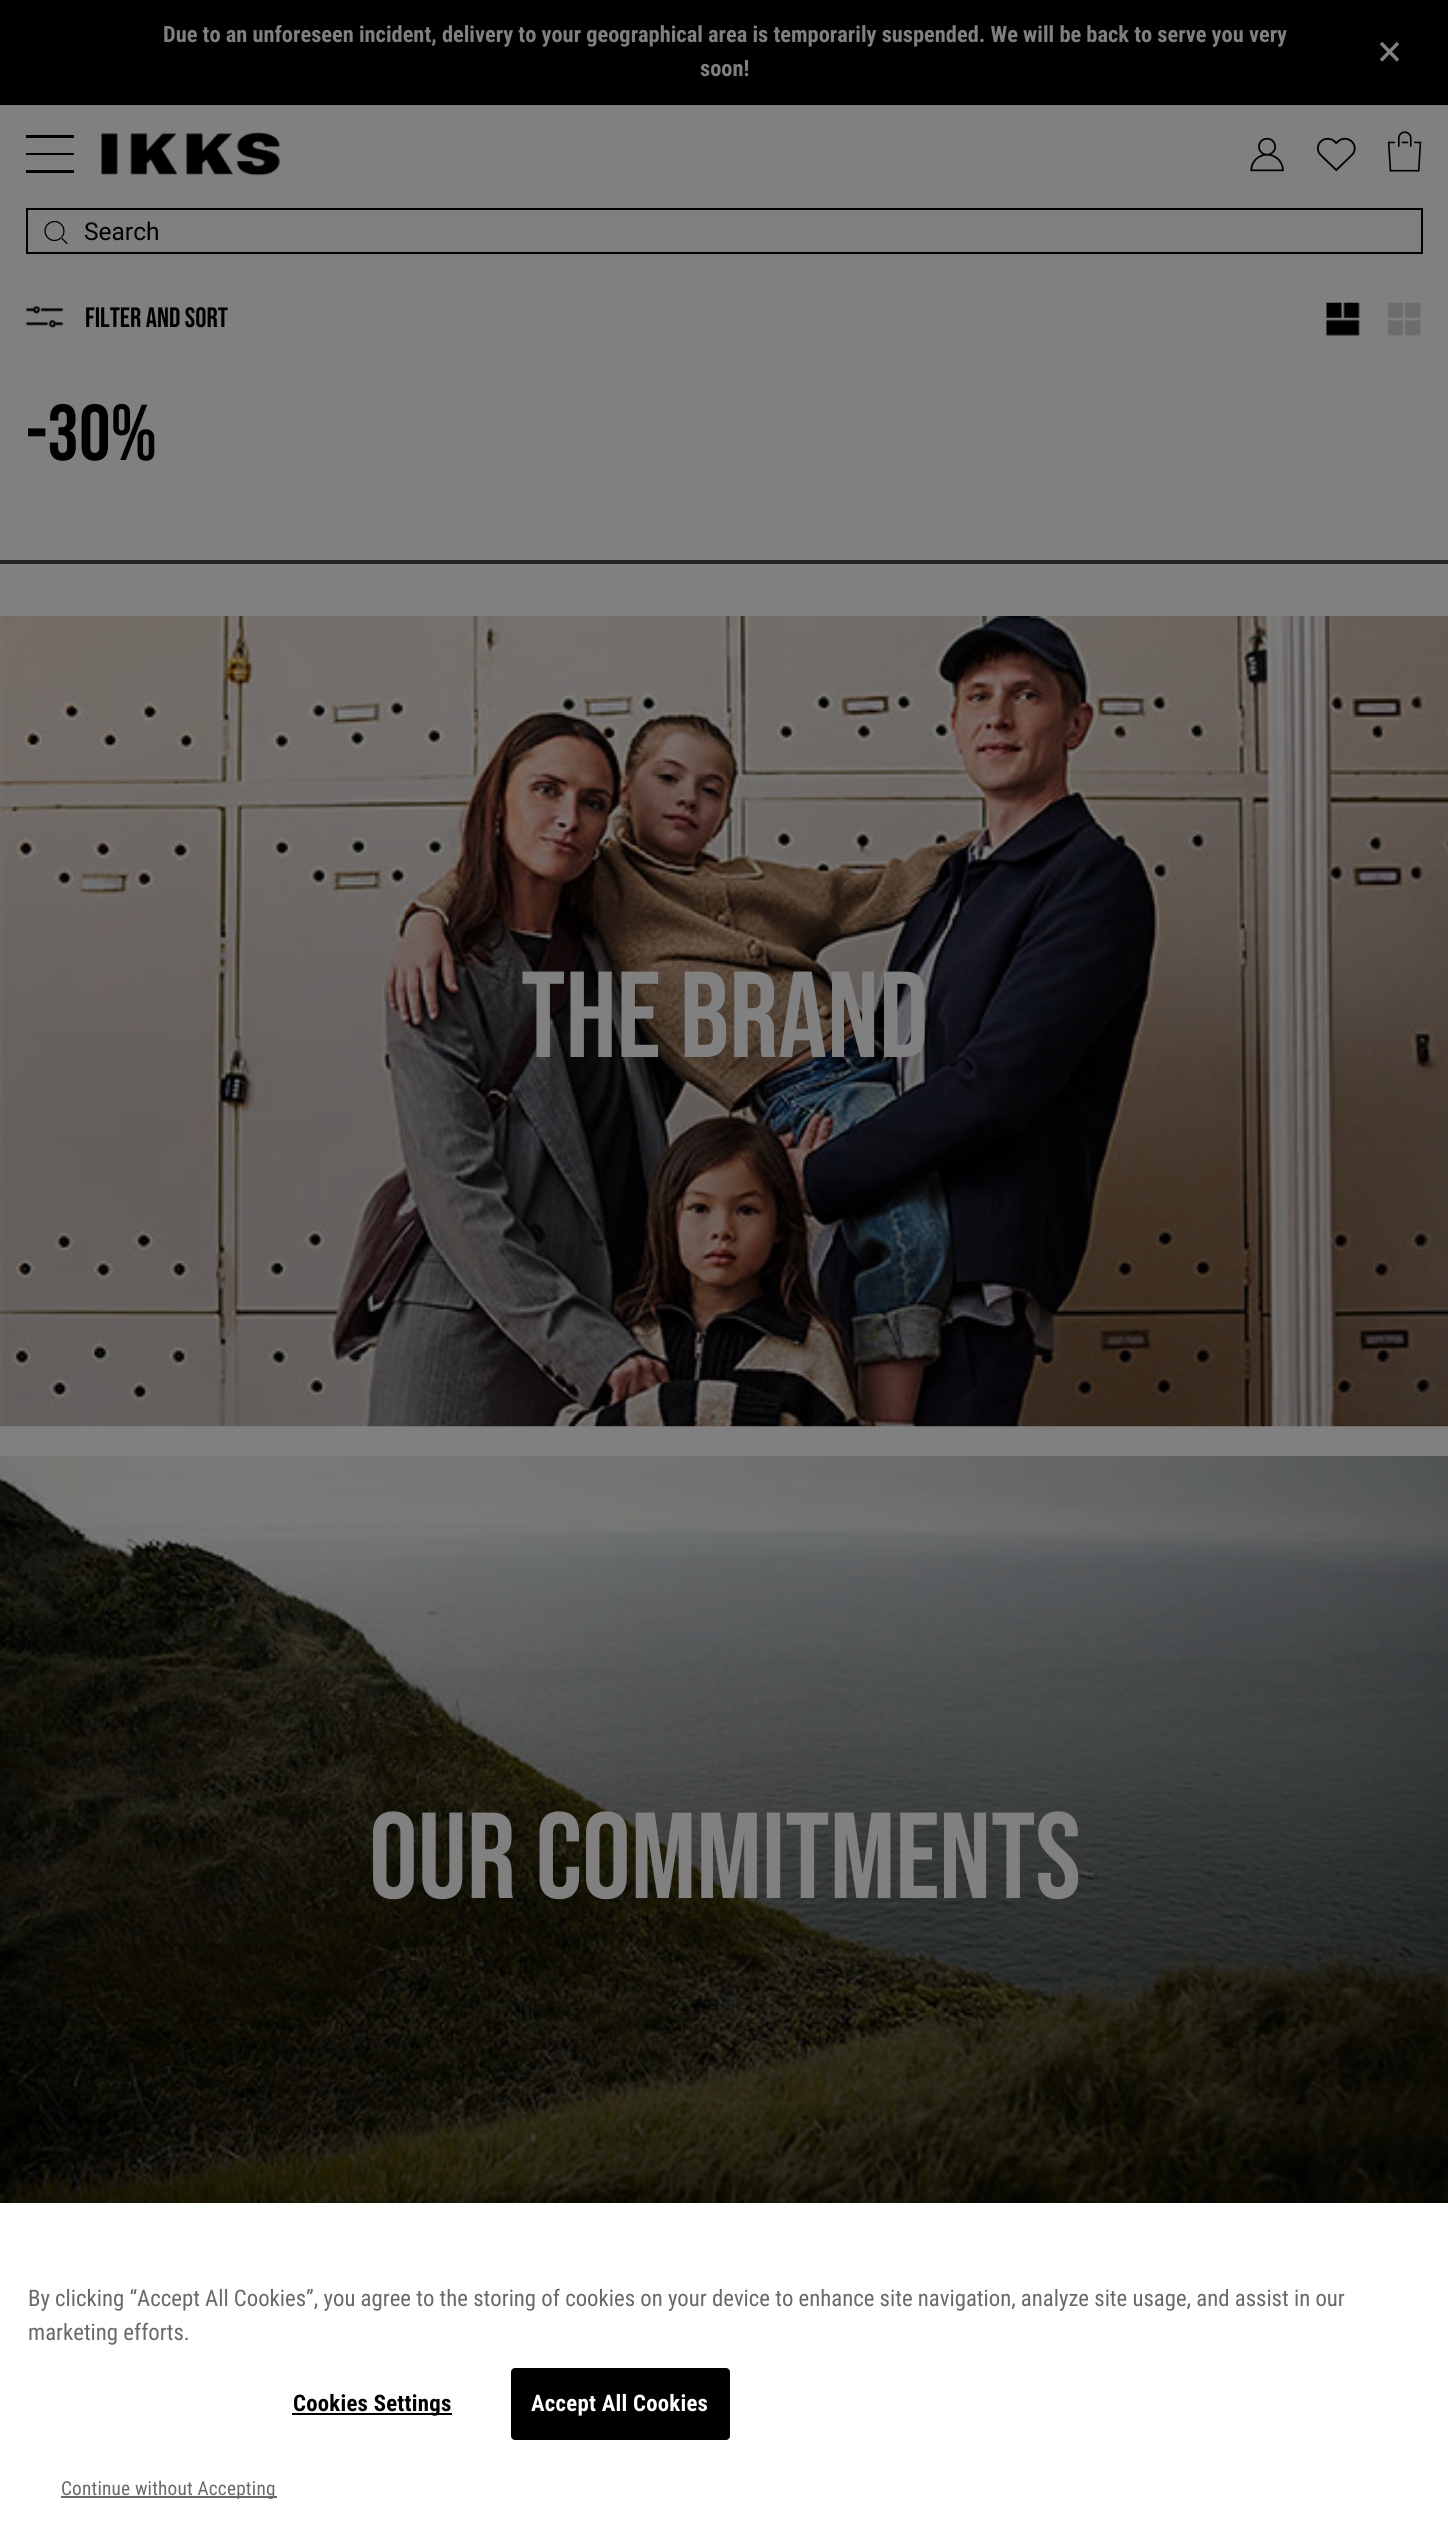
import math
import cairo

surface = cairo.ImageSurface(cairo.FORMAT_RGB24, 1448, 2532)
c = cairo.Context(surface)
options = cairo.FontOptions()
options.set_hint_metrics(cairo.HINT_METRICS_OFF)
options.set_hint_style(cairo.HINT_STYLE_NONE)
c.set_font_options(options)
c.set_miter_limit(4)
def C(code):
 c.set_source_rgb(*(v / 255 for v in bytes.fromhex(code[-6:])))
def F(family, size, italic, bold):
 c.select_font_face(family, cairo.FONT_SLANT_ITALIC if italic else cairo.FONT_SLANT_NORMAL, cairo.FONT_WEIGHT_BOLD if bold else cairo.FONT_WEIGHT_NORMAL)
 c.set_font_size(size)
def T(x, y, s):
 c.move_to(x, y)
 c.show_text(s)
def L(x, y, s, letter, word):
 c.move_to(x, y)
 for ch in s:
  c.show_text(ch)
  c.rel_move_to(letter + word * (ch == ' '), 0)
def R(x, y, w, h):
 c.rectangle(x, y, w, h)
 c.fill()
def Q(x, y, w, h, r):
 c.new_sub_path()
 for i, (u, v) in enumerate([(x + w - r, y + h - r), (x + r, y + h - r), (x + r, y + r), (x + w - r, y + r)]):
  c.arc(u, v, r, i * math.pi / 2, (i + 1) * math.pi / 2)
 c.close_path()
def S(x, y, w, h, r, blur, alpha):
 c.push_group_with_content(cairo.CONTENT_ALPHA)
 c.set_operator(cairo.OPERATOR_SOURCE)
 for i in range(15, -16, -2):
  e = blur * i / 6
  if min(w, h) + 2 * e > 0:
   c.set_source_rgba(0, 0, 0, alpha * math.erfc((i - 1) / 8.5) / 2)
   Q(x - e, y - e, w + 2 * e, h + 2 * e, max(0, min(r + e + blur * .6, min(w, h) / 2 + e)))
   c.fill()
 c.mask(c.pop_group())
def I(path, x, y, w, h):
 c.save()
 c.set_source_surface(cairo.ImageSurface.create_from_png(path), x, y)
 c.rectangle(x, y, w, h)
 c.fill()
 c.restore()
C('808080')
c.paint()
C('000000')
R(0,0,1448,105)
F('Roboto Condensed',22.4,0,1)
C('808080')
T(163,42,'Due to an unforeseen incident, delivery to your geographical area is temporarily suspended. We will be back to serve you very')
T(700,76,'soon!')
c.new_path()
c.move_to(1381,43)
c.line_to(1398,60.5)
c.move_to(1398,43)
c.line_to(1381,60.5)
c.set_line_width(3.5)
c.stroke()
C('000000')
R(26,135,48,3)
R(26,153,48,2)
R(26,170,48,3)
I('1.png',101,132,179,44)
I('2.png',1250,137,34,35)
I('3.png',1316,137,40,35)
I('4.png',1387,131,35,41)
c.rectangle(27,209,1395,44)
c.set_line_width(2)
c.stroke()
I('5.png',44,220,24,25)
F('Roboto',24.5,0,0)
T(84,240,'Search')
I('6.png',26,306,38,22)
F('Bebas Neue',28,0,0)
T(85,327,'FILTER AND SORT')
I('7.png',1326,302,34,34)
I('8.png',1387,302,34,34)
F('Bebas Neue',79,0,0)
T(26,460,'-30%')
C('252525')
R(0,560,1448,4)
I('9.png',0,616,1448,811)
F('Bebas Neue',122,0,1)
C('808080')
T(521,1057,'THE BRAND')
I('10.png',0,1456,1448,747)
T(369,1898,'OUR COMMITMENTS')
C('000000')
S(0,2203,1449,329,0,16,.2)
C('ffffff')
R(0,2203,1448,329)
F('Roboto Condensed',22.75,0,0)
C('696969')
T(28,2306,'By clicking “Accept All Cookies”, you agree to the storing of cookies on your device to enhance site navigation, analyze site usage, and assist in our')
T(28,2340,'marketing efforts.')
C('000000')
R(292,2413,160,2)
F('Roboto Condensed',22.75,0,1)
L(293,2411,'Cookies Settings',.25,0)
Q(512,2369,217,70,3)
c.fill_preserve()
c.stroke()
C('ffffff')
L(531,2411,'Accept All Cookies',.25,0)
C('696969')
R(61,2496,216,2)
F('Roboto Condensed',19.25,0,0)
L(61,2495,'Continue without Accepting',.2,0)
surface.write_to_png('o.png')
